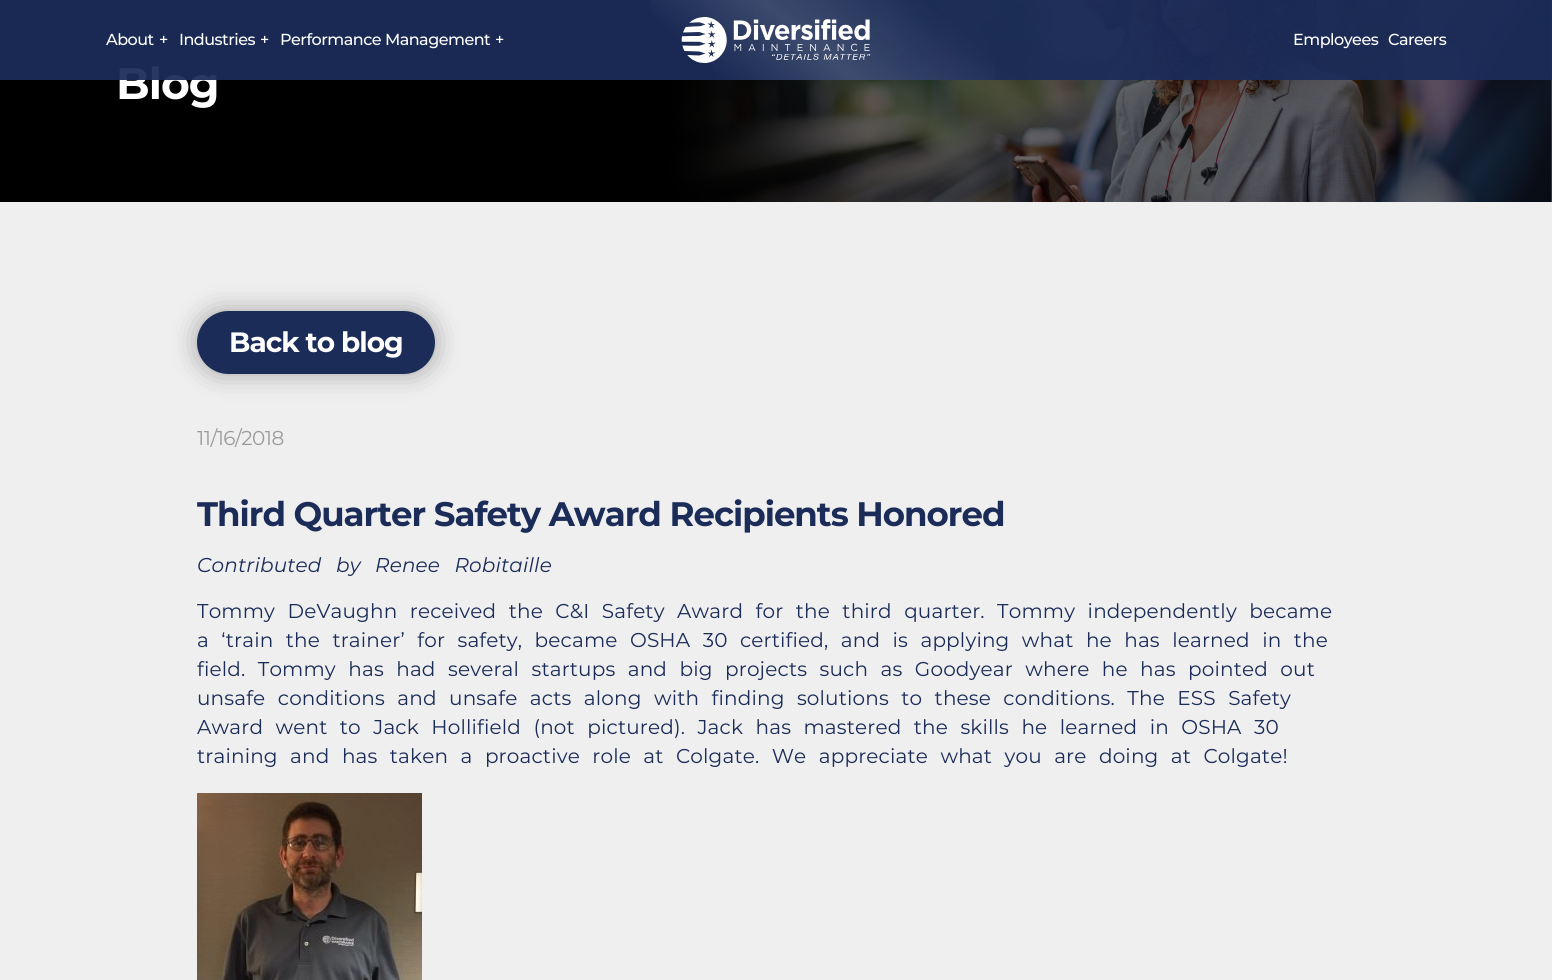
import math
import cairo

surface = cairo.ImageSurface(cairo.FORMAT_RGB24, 1552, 980)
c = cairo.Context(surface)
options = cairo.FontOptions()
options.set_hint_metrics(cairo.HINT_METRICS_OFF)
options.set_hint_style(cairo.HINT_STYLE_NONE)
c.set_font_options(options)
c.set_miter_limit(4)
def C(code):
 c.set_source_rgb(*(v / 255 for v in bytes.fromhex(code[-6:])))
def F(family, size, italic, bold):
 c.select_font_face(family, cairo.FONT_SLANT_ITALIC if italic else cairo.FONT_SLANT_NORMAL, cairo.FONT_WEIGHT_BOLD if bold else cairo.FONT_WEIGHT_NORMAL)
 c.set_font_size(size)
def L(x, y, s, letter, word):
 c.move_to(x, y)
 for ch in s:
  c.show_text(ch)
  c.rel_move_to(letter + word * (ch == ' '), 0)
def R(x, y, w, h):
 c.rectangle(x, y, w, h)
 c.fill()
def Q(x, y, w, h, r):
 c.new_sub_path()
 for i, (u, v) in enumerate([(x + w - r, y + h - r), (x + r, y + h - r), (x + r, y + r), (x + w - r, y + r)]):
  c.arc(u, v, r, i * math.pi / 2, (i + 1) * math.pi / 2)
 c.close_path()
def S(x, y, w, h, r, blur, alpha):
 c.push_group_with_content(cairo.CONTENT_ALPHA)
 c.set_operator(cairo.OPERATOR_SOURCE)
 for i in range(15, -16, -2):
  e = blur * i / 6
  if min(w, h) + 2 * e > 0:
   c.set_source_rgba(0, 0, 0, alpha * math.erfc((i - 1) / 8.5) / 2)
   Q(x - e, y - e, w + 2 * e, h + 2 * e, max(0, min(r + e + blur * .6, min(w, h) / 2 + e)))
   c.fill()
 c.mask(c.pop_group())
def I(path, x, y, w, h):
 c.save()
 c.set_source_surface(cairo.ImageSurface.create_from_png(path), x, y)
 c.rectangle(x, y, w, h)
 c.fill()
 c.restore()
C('efefef')
c.paint()
I('2.png',0,0,1552,202)
F('Montserrat',44,0,1)
C('ffffff')
L(116,99,'Blog',-1,0)
c.set_source_rgba(0.106,0.173,0.345,0.94)
R(0,0,1552,80)
gradient = cairo.LinearGradient(1130,-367,422,447)
gradient.add_color_stop_rgba(.38,1,1,1,0)
gradient.add_color_stop_rgba(.48,1,1,1,.15)
gradient.add_color_stop_rgba(.56,1,1,1,0)
c.set_source(gradient)
R(651,0,344,80)
F('Montserrat Medium',16,0,0)
C('ffffff')
L(106,45,'About',-.5,0)
L(159,45,'+',-.5,0)
L(179,45,'Industries',-.5,0)
L(260,45,'+',-.5,0)
L(280,45,'Performance Management',-.5,0)
L(495,45,'+',-.5,0)
I('1.png',681,17,190,46)
L(1293,45,'Employees',-.5,0)
L(1388,45,'Careers',-.5,0)
C('000000')
S(197,311,238,63,31.5,13,.31)
C('1b2c58')
Q(198,312,236,61,30.5)
c.fill_preserve()
c.stroke()
F('Montserrat',28,0,1)
C('ffffff')
L(229,352,'Back to blog',-1,0)
F('Montserrat',20,0,0)
C('9b9b9b')
L(197,445,'11/16/2018',-.5,0)
F('Montserrat',34,0,1)
C('1b2c58')
L(197,526,'Third Quarter Safety Award Recipients Honored',-1,0)
F('Montserrat',20,1,0)
L(197,572,'Contributed by Renee Robitaille',.16,9)
F('Montserrat',20,0,0)
L(197,618,'Tommy DeVaughn received the C&I Safety Award for the third quarter. Tommy independently became',.16,7)
L(197,647,'a ‘train the trainer’ for safety, became OSHA 30 certified, and is applying what he has learned in the',.16,7)
L(197,676,'field. Tommy has had several startups and big projects such as Goodyear where he has pointed out',.16,7)
L(197,705,'unsafe conditions and unsafe acts along with finding solutions to these conditions. The ESS Safety',.16,7)
L(197,734,'Award went to Jack Hollifield (not pictured). Jack has mastered the skills he learned in OSHA 30',.16,7)
L(197,763,'training and has taken a proactive role at Colgate. We appreciate what you are doing at Colgate!',.16,7)
I('3.png',197,793,225,187)
surface.write_to_png('o.png')
